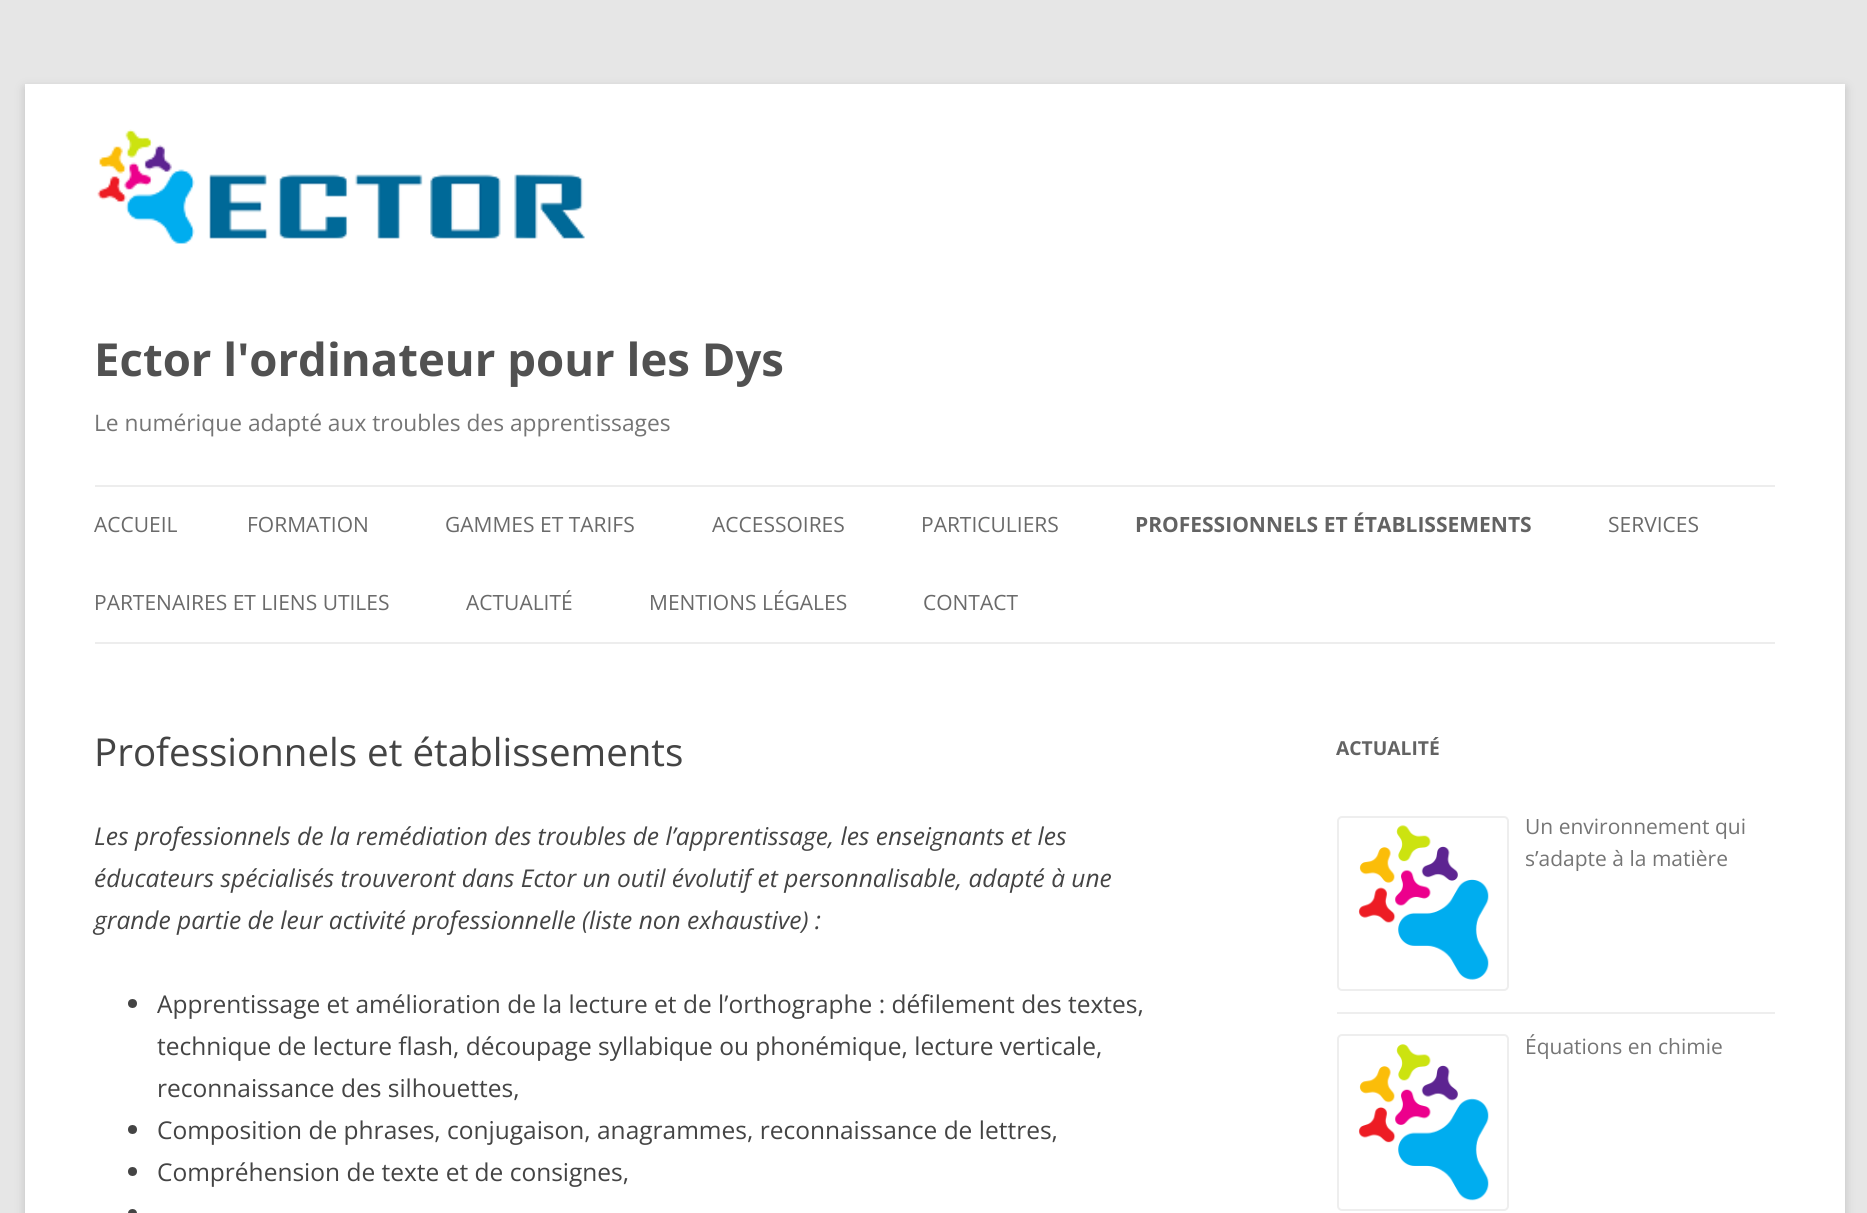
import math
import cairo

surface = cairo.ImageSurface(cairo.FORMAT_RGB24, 1867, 1213)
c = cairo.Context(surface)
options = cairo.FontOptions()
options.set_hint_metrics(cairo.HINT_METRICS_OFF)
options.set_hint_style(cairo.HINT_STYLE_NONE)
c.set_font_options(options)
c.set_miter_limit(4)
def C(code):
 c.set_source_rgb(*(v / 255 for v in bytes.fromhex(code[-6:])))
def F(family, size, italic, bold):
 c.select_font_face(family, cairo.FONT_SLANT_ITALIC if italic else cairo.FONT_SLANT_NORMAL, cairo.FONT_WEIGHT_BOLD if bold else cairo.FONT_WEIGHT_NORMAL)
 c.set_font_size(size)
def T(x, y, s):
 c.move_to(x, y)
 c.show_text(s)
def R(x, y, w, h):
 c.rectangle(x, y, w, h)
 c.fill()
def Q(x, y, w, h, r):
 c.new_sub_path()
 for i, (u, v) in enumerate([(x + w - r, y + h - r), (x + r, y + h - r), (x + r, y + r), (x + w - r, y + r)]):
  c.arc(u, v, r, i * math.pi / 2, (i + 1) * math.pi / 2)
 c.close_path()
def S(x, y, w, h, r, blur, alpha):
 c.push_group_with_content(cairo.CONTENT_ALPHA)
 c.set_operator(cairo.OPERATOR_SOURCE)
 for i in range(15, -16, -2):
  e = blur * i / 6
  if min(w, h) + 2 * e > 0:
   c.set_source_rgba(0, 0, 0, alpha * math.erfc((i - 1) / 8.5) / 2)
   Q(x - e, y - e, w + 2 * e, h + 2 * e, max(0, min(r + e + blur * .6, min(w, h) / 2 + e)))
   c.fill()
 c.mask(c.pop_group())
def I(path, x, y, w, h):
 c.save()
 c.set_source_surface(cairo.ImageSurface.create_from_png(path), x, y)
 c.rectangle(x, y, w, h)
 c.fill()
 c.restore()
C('e6e6e6')
c.paint()
C('646464')
S(25,88,1820,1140,0,5,.3)
C('ffffff')
R(25,84,1820,1129)
I('1.png',97,129,488,115)
F('Open Sans',45.5,0,1)
C('515151')
T(94,376,'Ector l\'ordinateur pour les Dys')
F('Open Sans',22.75,0,0)
C('757575')
T(94,431,'Le numérique adapté aux troubles des apprentissages')
C('ededed')
R(95,485,1680,2)
R(95,642,1680,2)
F('Open Sans',21,0,0)
C('6a6a6a')
T(94,532,'ACCUEIL')
T(247,532,'FORMATION')
T(445,532,'GAMMES ET TARIFS')
T(712,532,'ACCESSOIRES')
T(921,532,'PARTICULIERS')
F('Open Sans',21,0,1)
C('636363')
T(1135,532,'PROFESSIONNELS ET ÉTABLISSEMENTS')
F('Open Sans',21,0,0)
C('6a6a6a')
T(1608,532,'SERVICES')
T(94,610,'PARTENAIRES ET LIENS UTILES')
T(466,610,'ACTUALITÉ')
T(649,610,'MENTIONS LÉGALES')
T(923,610,'CONTACT')
F('Open Sans',38.5,0,0)
C('444444')
T(94,766,'Professionnels et établissements')
F('Open Sans',24.5,1,0)
T(94,845,'Les professionnels de la remédiation des troubles de l’apprentissage, les enseignants et les')
T(94,887,'éducateurs spécialisés trouveront dans Ector un outil évolutif et personnalisable, adapté à une')
T(94,929,'grande partie de leur activité professionnelle (liste non exhaustive) :')
c.new_path()
c.arc(132.5,1003.5,4.5,0,2 * math.pi)
c.fill()
F('Open Sans',24.5,0,0)
T(157,1013,'Apprentissage et amélioration de la lecture et de l’orthographe : défilement des textes,')
T(157,1055,'technique de lecture flash, découpage syllabique ou phonémique, lecture verticale,')
T(157,1097,'reconnaissance des silhouettes,')
c.new_path()
c.arc(132.5,1129.5,4.5,0,2 * math.pi)
c.fill()
T(157,1139,'Composition de phrases, conjugaison, anagrammes, reconnaissance de lettres,')
c.new_path()
c.arc(132.5,1171.5,4.5,0,2 * math.pi)
c.fill()
T(157,1181,'Compréhension de texte et de consignes,')
c.new_path()
c.arc(132.5,1213.5,4.5,0,2 * math.pi)
c.fill()
F('Open Sans',19.25,0,1)
C('636363')
T(1336,755,'ACTUALITÉ')
C('eeeeee')
R(1337,1012,438,2)
Q(1338,817,170,173,4)
c.stroke()
I('2.png',1358,825,131,155)
F('Open Sans',21,0,0)
C('757575')
T(1525,834,'Un environnement qui')
T(1525,866,'s’adapte à la matière')
Q(1338,1035,170,175,4)
C('eeeeee')
c.stroke()
I('3.png',1358,1044,131,157)
C('757575')
T(1525,1054,'Équations en chimie')
surface.write_to_png('o.png')
